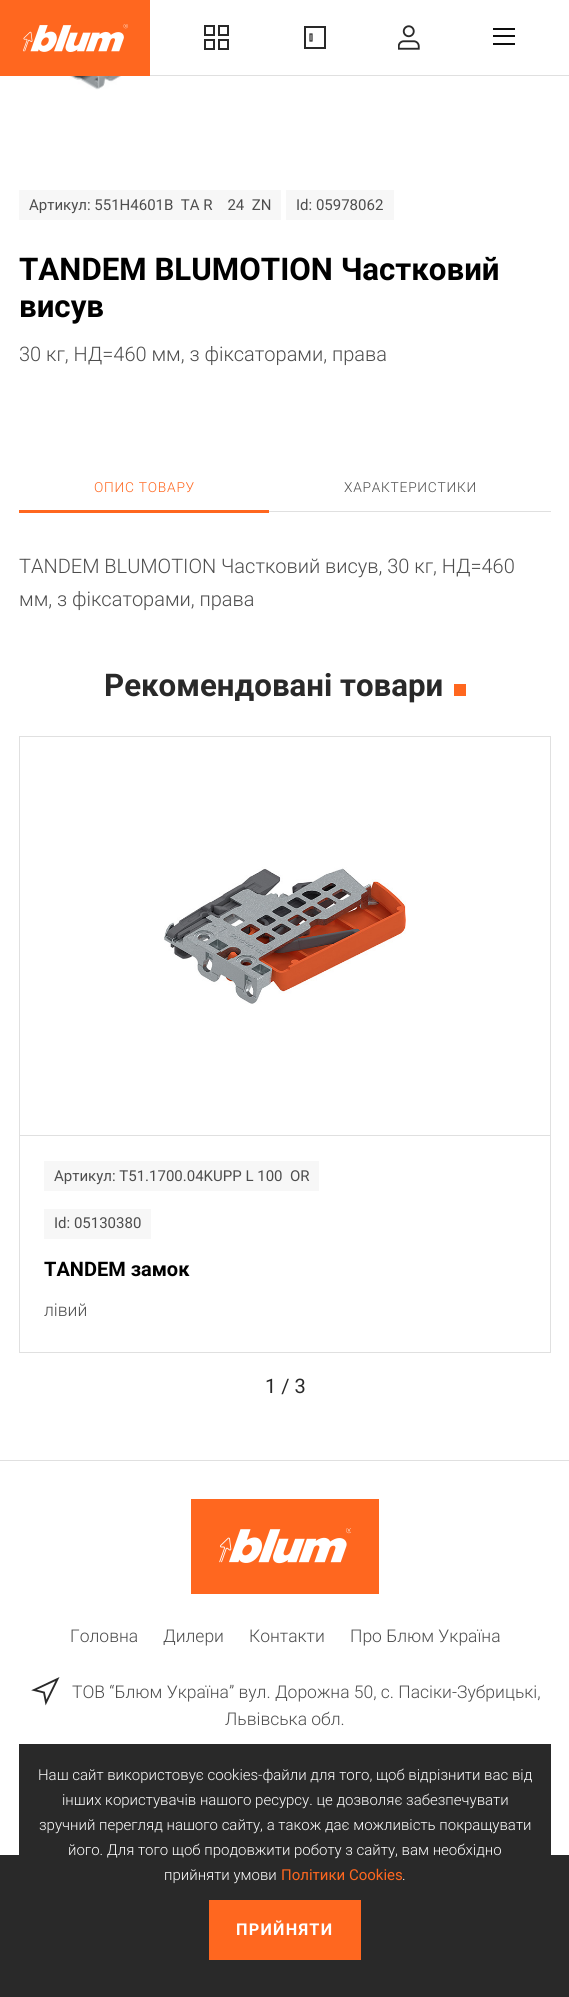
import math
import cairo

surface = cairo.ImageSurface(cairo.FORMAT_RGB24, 569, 1997)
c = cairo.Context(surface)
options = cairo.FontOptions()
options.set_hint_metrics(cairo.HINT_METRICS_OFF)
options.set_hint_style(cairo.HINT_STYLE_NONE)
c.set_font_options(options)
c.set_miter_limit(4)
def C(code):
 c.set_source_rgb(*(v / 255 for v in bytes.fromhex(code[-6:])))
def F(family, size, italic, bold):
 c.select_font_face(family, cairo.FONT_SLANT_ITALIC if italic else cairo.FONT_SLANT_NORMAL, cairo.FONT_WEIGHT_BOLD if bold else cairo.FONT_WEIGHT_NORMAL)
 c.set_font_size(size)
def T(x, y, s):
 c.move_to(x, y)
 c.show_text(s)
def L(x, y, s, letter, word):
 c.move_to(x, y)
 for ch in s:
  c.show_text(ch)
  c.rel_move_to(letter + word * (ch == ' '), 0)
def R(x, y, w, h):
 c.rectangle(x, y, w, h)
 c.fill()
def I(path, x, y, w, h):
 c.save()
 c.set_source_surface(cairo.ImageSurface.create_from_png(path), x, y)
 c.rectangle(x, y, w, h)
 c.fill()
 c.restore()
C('ffffff')
c.paint()
C('e0e0e0')
R(150,75,419,1)
C('ff671f')
R(0,0,150,76)
I('1.png',23,24,105,28)
c.rectangle(205,26,9,9)
C('292929')
c.stroke()
c.rectangle(219,26,9,9)
c.stroke()
c.rectangle(205,40,9,9)
c.stroke()
c.rectangle(219,40,9,9)
c.stroke()
c.rectangle(305,27,20,21)
c.stroke()
c.new_path()
c.move_to(312,34)
c.line_to(312,41)
c.line_to(310,41)
c.line_to(310,34)
c.close_path()
c.set_line_width(1.2)
c.stroke()
I('2.png',398,25,22,25)
C('0d0d0d')
R(493,28,22,2)
R(493,35,22,2)
R(493,43,22,2)
I('3.png',65,76,188,14)
C('f7f7f7')
R(19,190,262,30)
F('Roboto',15,0,0)
C('4d4d4d')
T(29,210,'Артикул: 551H4601B  TA R    24  ZN')
C('f7f7f7')
R(286,190,108,30)
C('4d4d4d')
T(296,210,'Id: 05978062')
F('Roboto',31.25,0,1)
C('000000')
T(19,280,'TANDEM BLUMOTION Частковий')
T(19,317,'висув')
F('Roboto Light',20,0,0)
C('4d4d4d')
T(19,361,'30 кг, НД=460 мм, з фіксаторами, права')
F('Roboto Light',13.75,0,0)
C('ff671f')
L(94,492,'ОПИС ТОВАРУ',.75,0)
R(19,510,250,3)
C('e0e0e0')
R(269,511,282,1)
C('4d4d4d')
L(344,492,'ХАРАКТЕРИСТИКИ',.75,0)
F('Roboto Light',20,0,0)
T(19,573,'TANDEM BLUMOTION Частковий висув, 30 кг, НД=460')
T(19,606,'мм, з фіксаторами, права')
F('Roboto',31.25,0,1)
C('292929')
T(104,696,'Рекомендовані товари')
C('ff671f')
R(454,684,12,12)
c.rectangle(19.5,736.5,531,616)
C('e0e0e0')
c.set_line_width(1)
c.stroke()
c.rectangle(19.5,736.5,531,399)
c.stroke()
I('4.png',164,867,242,137)
C('f7f7f7')
R(44,1161,275,30)
F('Roboto',15,0,0)
C('4d4d4d')
T(54,1181,'Артикул: T51.1700.04KUPP L 100  OR')
C('f7f7f7')
R(44,1209,107,30)
C('4d4d4d')
T(54,1228,'Id: 05130380')
F('Roboto',20,0,1)
C('000000')
T(44,1276,'TANDEM замок')
F('Roboto Light',17.5,0,0)
C('4d4d4d')
T(44,1316,'лівий')
F('Roboto',20,0,0)
C('292929')
T(265,1393,'1 / 3')
C('e0e0e0')
R(0,1460,569,1)
C('ff671f')
R(191,1499,188,95)
I('5.png',219,1528,132,36)
F('Roboto Light',17.5,0,0)
C('4d4d4d')
T(70,1642,'Головна')
T(163,1642,'Дилери')
T(249,1642,'Контакти')
T(350,1642,'Про Блюм Україна')
c.new_path()
c.move_to(34,1690)
c.line_to(57.5,1679)
c.line_to(46,1702.5)
c.line_to(44,1692.5)
c.close_path()
C('292929')
c.set_line_width(1.9)
c.stroke()
C('4d4d4d')
T(72,1698,'ТОВ “Блюм Україна” вул. Дорожна 50, c. Пасіки-Зубрицькі,')
T(225,1725,'Львівська обл.')
C('292929')
R(0,1855,569,142)
R(19,1744,532,111)
F('Roboto Light',15,0,0)
C('ffffff')
T(38,1780,'Наш сайт використовує cookies-файли для того, щоб відрізнити вас від')
T(62,1805,'інших користувачів нашого ресурсу. це дозволяє забезпечувати')
T(39,1830,'зручний перегляд нашого сайту, а також дає можливість покращувати')
T(68,1855,'його. Для того щоб продовжити роботу з сайту, вам необхідно')
T(164,1880,'прийняти умови')
F('Roboto',15,0,0)
C('ff671f')
T(281,1880,'Політики Cookies')
F('Roboto Light',15,0,0)
C('ffffff')
T(402,1880,'.')
c.rectangle(210.5,1901.5,149,57)
C('ff671f')
c.set_line_width(3)
c.stroke()
R(212,1903,146,54)
F('Roboto',16.25,0,1)
C('ffffff')
L(236,1935,'ПРИЙНЯТИ',1.25,0)
surface.write_to_png('o.png')
